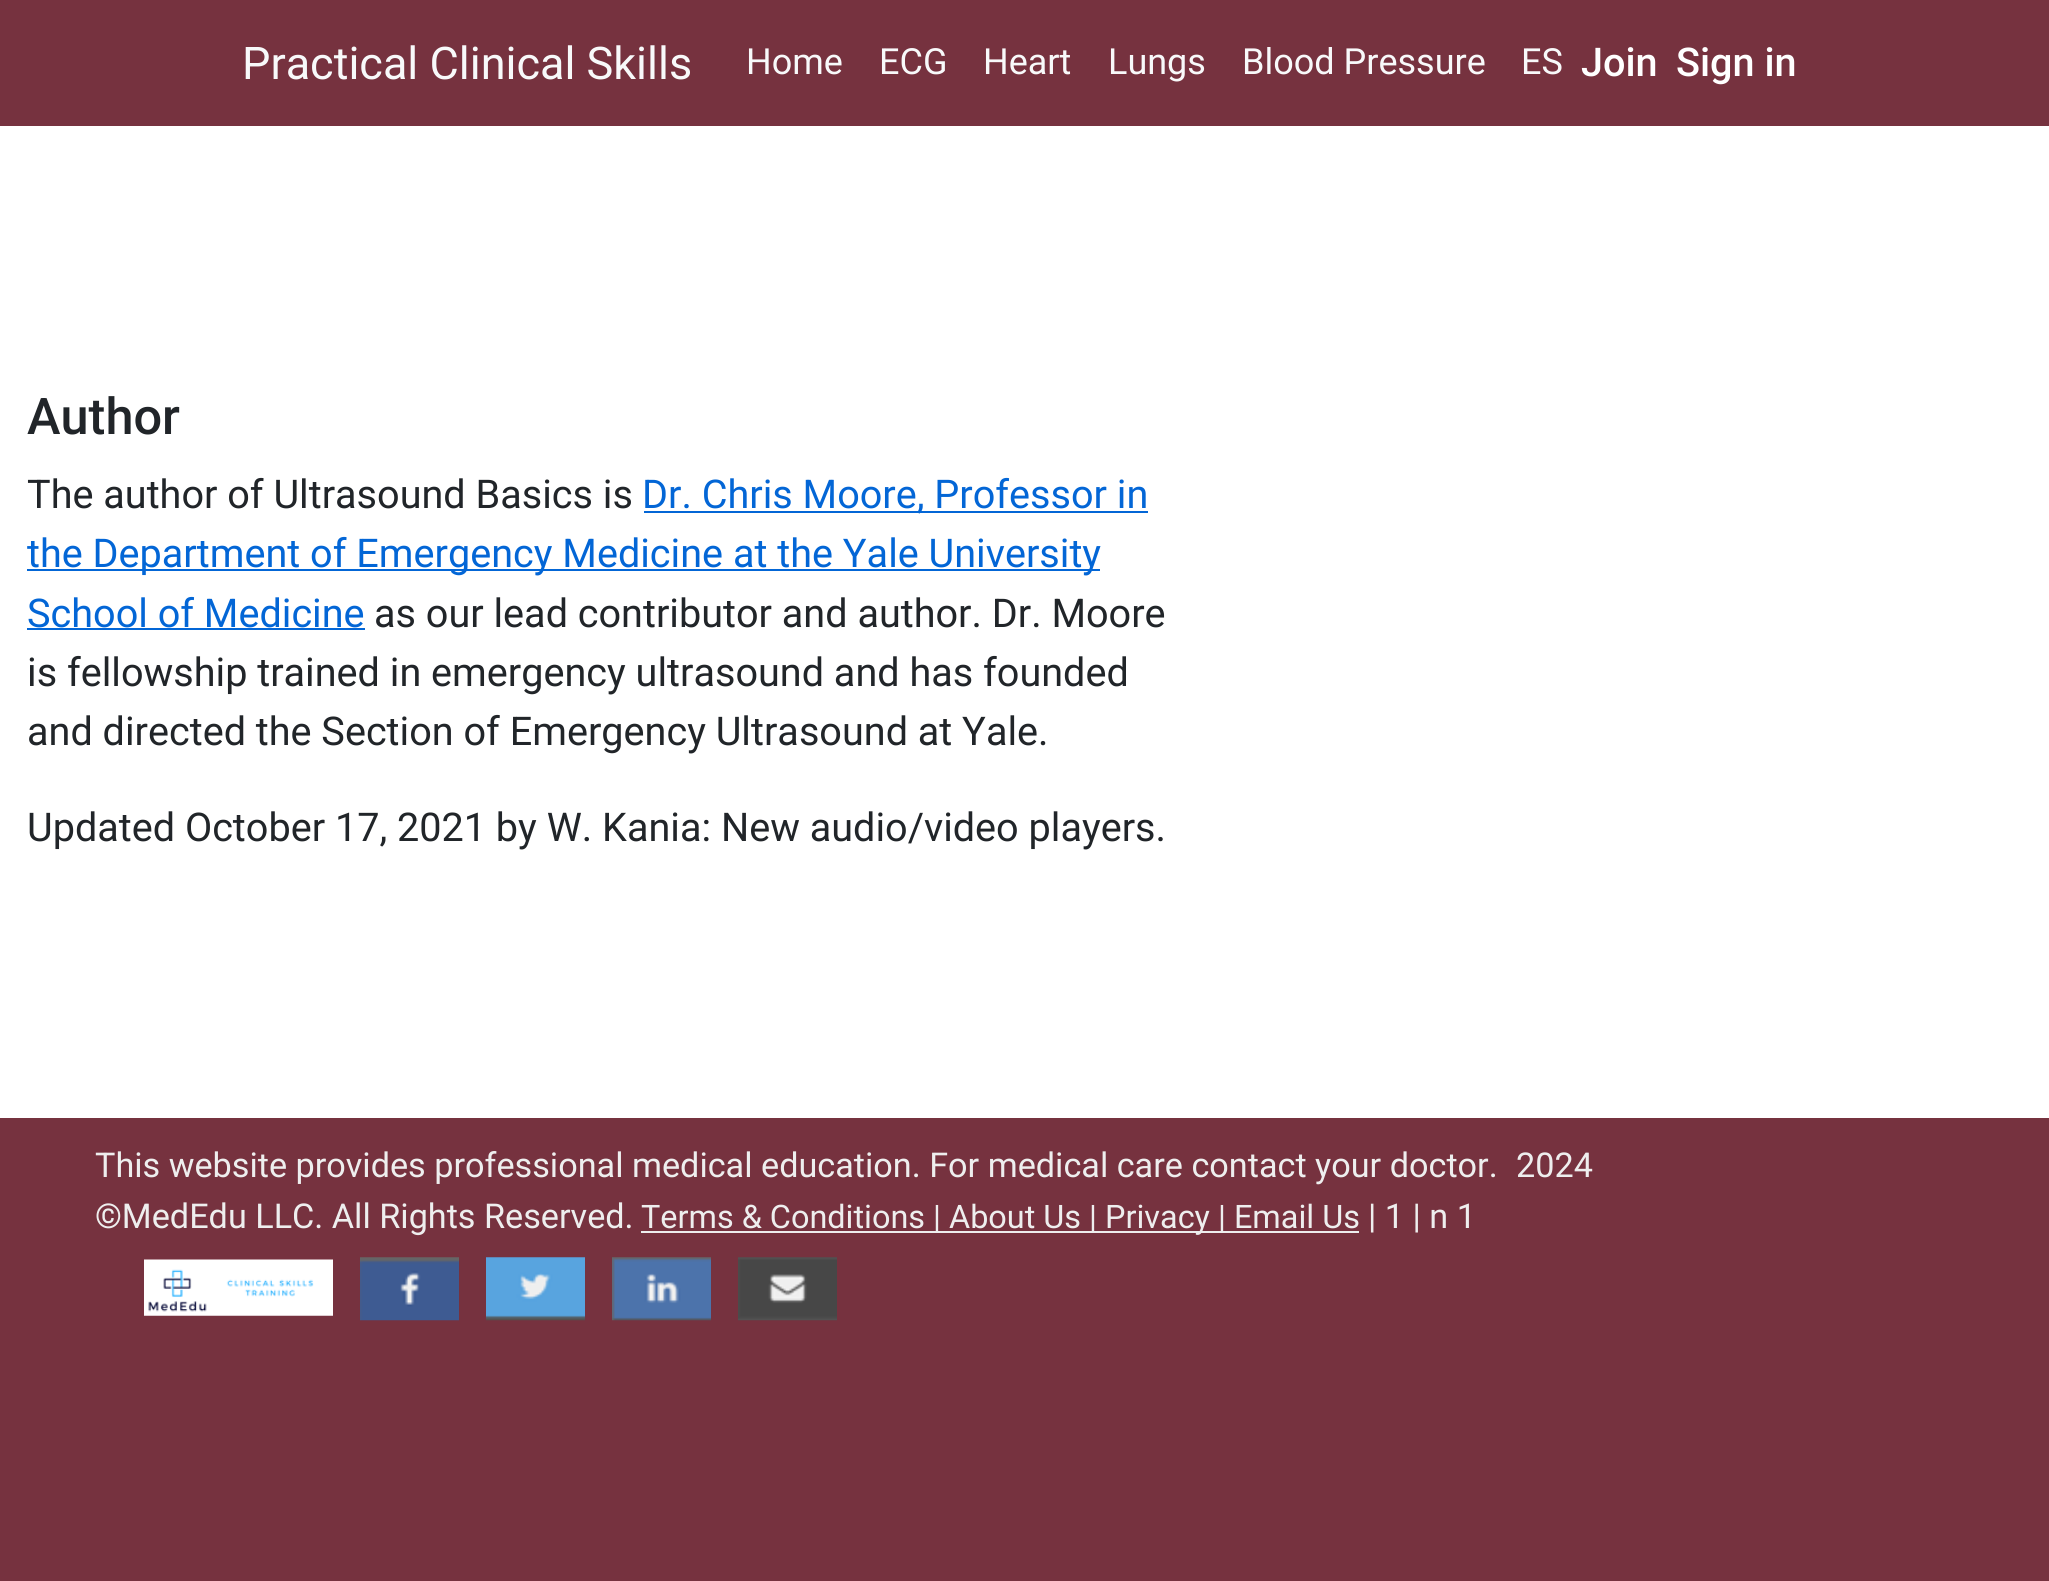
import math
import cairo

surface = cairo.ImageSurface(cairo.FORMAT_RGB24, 2049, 1581)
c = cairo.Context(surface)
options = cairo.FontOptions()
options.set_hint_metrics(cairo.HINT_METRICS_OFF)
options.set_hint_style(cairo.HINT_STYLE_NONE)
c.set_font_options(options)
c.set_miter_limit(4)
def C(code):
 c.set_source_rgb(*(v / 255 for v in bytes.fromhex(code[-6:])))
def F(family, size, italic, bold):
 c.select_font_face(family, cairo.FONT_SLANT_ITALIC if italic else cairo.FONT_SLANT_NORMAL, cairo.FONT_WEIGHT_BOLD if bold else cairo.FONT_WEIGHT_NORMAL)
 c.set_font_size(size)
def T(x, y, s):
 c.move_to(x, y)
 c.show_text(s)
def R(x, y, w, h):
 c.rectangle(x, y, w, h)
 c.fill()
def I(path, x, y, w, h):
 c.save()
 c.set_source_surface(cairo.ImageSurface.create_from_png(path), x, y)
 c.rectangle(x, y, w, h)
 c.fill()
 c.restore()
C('ffffff')
c.paint()
C('76323f')
R(0,0,2049,126)
F('Roboto',45,0,0)
C('f8f9fa')
T(242,79,'Practical Clinical Skills')
F('Roboto',36,0,0)
T(746,74,'Home')
T(879,74,'ECG')
T(983,74,'Heart')
T(1108,74,'Lungs')
T(1242,74,'Blood Pressure')
T(1521,74,'ES')
F('Roboto Medium',39.6,0,0)
C('ffffff')
T(1581,76,'Join')
T(1676,76,'Sign in')
F('Roboto Medium',50.5,0,0)
C('212529')
T(27,434,'Author')
F('Roboto',39.6,0,0)
T(27,508,'The author of Ultrasound Basics is')
C('0366d6')
R(644,511,504,2)
T(642,508,'Dr. Chris Moore, Professor in')
R(27,569,1073,2)
T(27,567,'the Department of Emergency Medicine at the Yale University')
T(27,627,'School of Medicine')
R(27,628,338,2)
C('212529')
T(374,627,'as our lead contributor and author. Dr. Moore')
T(27,686,'is fellowship trained in emergency ultrasound and has founded')
T(27,745,'and directed the Section of Emergency Ultrasound at Yale.')
T(27,841,'Updated October 17, 2021 by W. Kania: New audio/video players.')
C('76323f')
R(0,1118,2049,463)
F('Roboto',34.2,0,0)
C('eeeeee')
T(95,1177,'This website provides professional medical education. For medical care contact your doctor.')
T(1516,1177,'2024')
T(95,1228,'©MedEdu LLC. All Rights Reserved.')
R(641,1231,718,2)
F('Roboto',32.4,0,0)
T(641,1228,'Terms & Conditions | About Us | Privacy | Email Us')
F('Roboto',34.2,0,0)
T(1368,1228,'| 1 | n 1')
I('1.png',144,1259,189,57)
I('2.png',360,1257,99,64)
I('3.png',486,1257,99,64)
I('4.png',612,1257,99,64)
I('5.png',738,1257,99,64)
surface.write_to_png('o.png')
